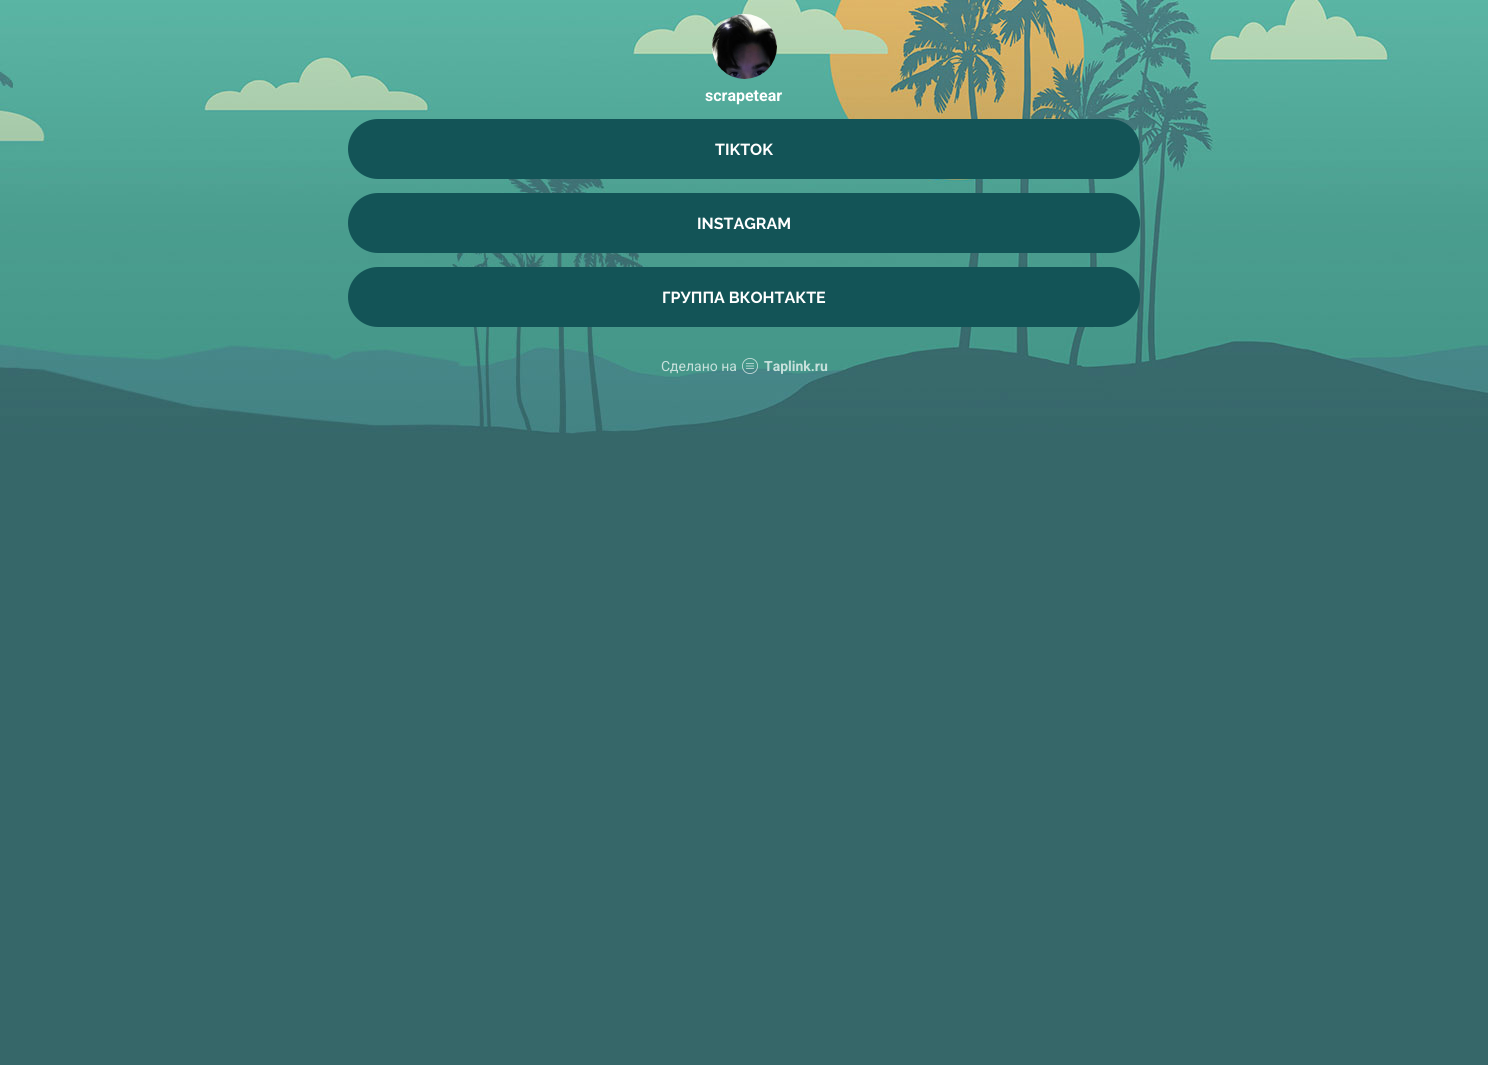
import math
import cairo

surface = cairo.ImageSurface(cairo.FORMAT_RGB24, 1488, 1065)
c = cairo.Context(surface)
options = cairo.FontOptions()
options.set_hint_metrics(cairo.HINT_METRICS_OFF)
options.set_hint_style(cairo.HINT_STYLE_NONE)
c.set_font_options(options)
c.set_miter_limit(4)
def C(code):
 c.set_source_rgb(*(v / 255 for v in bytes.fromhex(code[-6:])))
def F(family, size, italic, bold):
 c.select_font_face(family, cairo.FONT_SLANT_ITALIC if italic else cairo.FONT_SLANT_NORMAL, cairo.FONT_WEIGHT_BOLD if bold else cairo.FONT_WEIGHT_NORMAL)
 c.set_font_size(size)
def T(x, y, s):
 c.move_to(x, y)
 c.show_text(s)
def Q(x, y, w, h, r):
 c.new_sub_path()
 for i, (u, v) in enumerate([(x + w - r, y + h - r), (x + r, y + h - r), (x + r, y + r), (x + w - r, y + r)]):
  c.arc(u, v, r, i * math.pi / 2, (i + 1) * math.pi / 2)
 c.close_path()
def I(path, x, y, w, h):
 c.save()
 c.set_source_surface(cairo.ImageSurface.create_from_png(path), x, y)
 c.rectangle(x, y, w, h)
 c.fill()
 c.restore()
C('366769')
c.paint()
I('1.png',0,0,1488,434)
I('2.png',712,14,65,65)
F('Roboto',16,0,1)
C('ffffff')
T(705,101,'scrapetear')
C('135457')
Q(348,119,792,60,30)
c.fill()
F('Raleway Thin',16,0,0)
C('ffffff')
T(715,155,'TIKTOK')
C('135457')
Q(348,193,792,60,30)
c.fill()
C('ffffff')
T(697,229,'INSTAGRAM')
C('135457')
Q(348,267,792,60,30)
c.fill()
C('ffffff')
T(662,303,'ГРУППА ВКОНТАКТЕ')
F('Roboto',14,0,0)
C('c7e0dc')
T(661,371,'Сделано на')
I('3.png',742,358,16,16)
F('Roboto',14,0,1)
T(764,371,'Taplink.ru')
surface.write_to_png('o.png')
